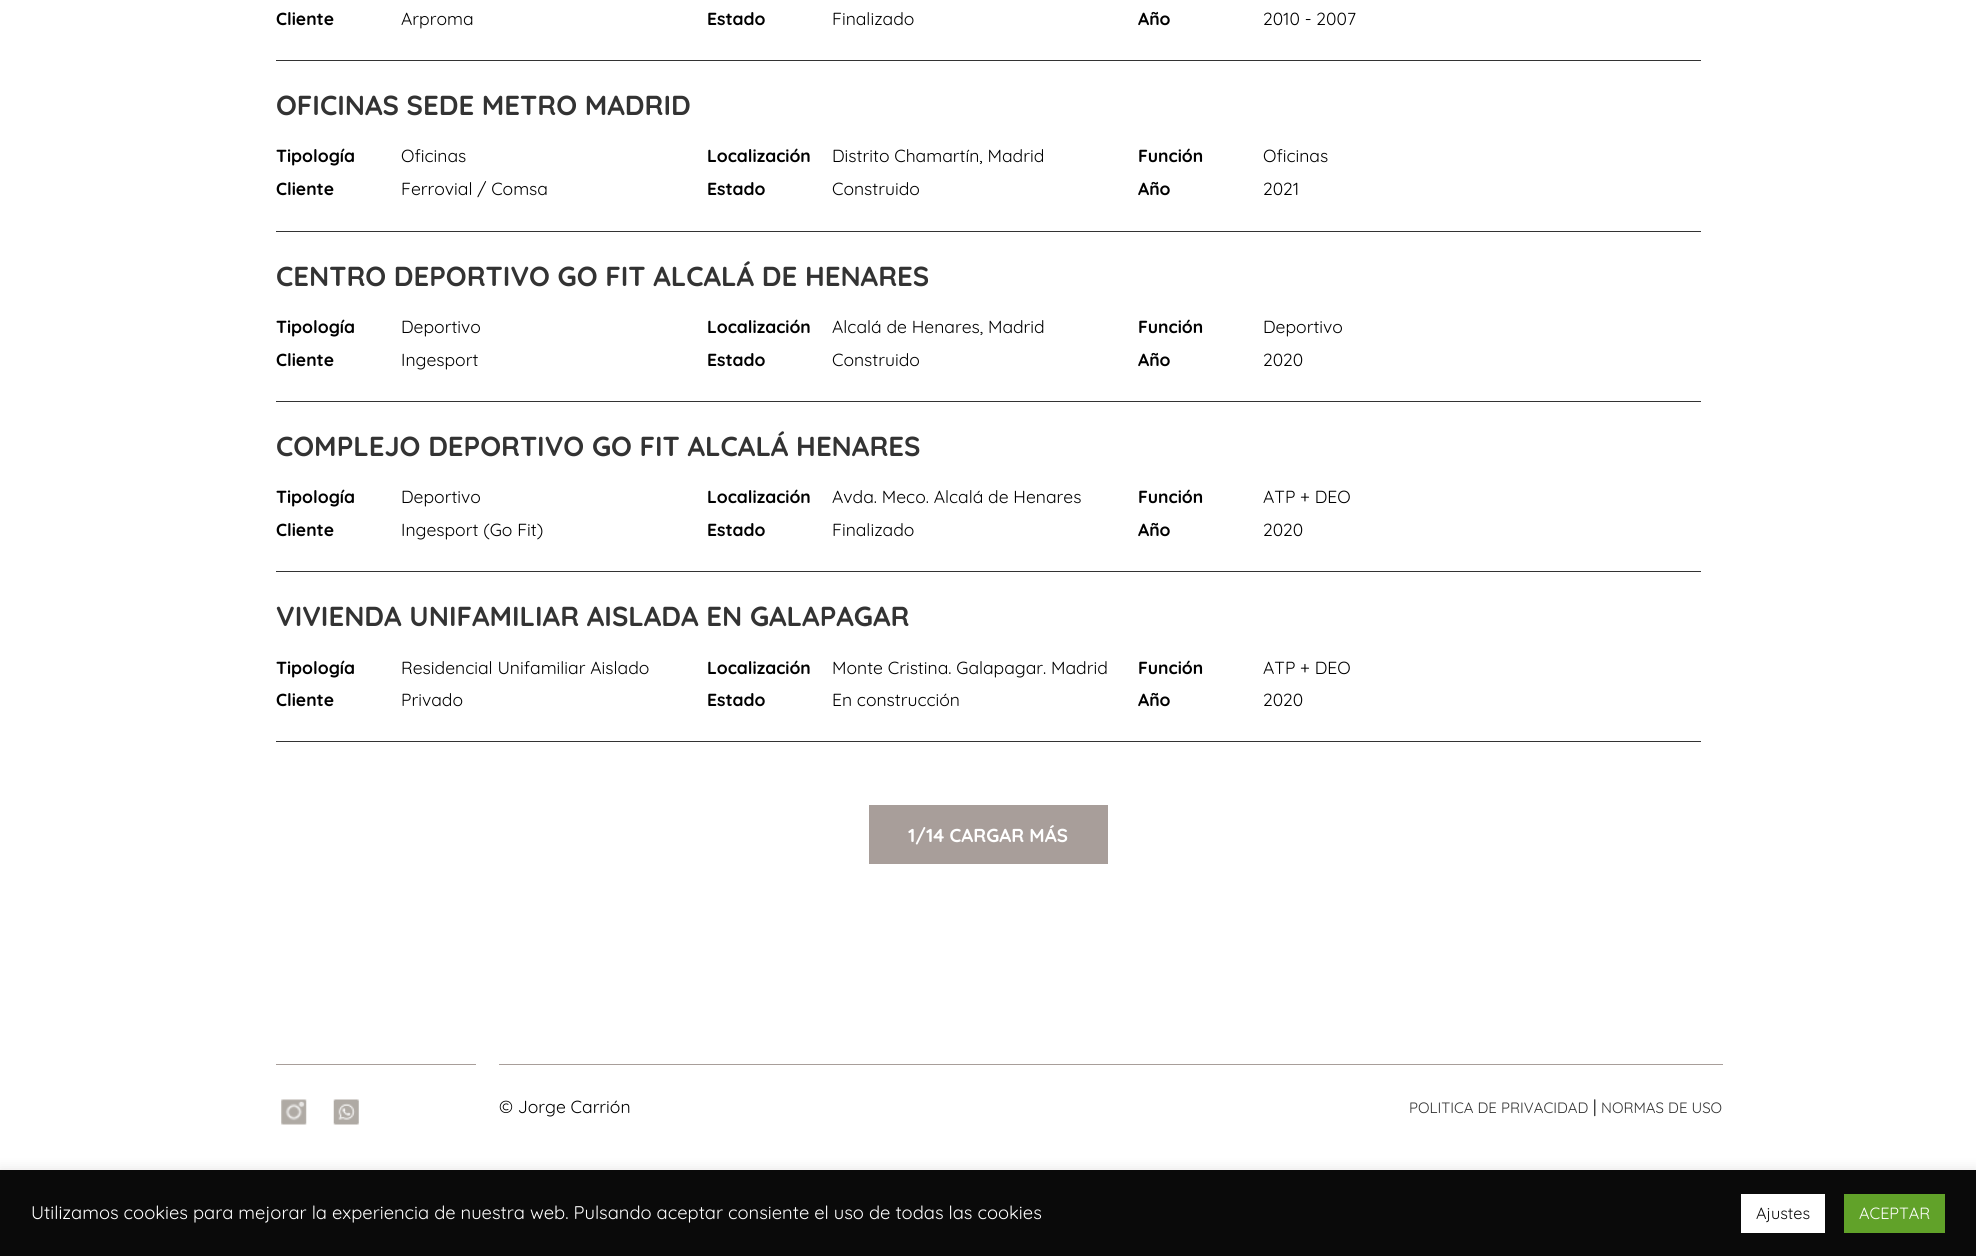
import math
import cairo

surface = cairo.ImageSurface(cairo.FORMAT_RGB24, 1976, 1256)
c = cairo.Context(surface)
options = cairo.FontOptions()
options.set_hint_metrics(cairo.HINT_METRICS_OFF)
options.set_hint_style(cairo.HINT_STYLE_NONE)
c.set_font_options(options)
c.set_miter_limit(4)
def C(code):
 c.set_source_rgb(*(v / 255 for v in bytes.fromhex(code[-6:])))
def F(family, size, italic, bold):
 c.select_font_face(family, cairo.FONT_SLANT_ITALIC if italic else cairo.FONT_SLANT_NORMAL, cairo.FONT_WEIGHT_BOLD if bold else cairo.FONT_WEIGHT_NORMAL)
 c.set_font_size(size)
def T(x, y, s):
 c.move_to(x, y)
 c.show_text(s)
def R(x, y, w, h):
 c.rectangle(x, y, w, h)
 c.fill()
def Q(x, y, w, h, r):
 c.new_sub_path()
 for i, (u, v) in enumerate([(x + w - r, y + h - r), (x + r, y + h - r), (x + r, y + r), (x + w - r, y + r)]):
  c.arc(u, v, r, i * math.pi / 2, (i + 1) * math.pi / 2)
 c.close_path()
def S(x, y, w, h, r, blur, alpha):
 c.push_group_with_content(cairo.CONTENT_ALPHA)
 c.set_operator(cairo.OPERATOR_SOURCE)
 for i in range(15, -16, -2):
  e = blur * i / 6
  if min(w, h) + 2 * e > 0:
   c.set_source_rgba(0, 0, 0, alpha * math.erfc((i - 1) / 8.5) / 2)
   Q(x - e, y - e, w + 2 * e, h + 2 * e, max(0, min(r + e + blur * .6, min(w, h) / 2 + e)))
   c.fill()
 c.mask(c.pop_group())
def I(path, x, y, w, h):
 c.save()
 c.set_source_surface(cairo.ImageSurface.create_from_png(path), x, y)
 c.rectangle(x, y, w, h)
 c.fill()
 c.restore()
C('ffffff')
c.paint()
C('333333')
R(276,60,1425,1)
F('Quicksand',17.5,0,1)
C('000000')
T(276,25,'Cliente')
F('Quicksand',17.5,0,0)
T(401,25,'Arproma')
F('Quicksand',17.5,0,1)
T(707,25,'Estado')
F('Quicksand',17.5,0,0)
T(832,25,'Finalizado')
F('Quicksand',17.5,0,1)
T(1138,25,'Año')
F('Quicksand',17.5,0,0)
T(1263,25,'2010 - 2007')
C('333333')
R(276,231,1425,1)
F('Quicksand',27.5,0,1)
T(276,115,'OFICINAS SEDE METRO MADRID')
F('Quicksand',17.5,0,1)
C('000000')
T(276,162,'Tipología')
F('Quicksand',17.5,0,0)
T(401,162,'Oficinas')
F('Quicksand',17.5,0,1)
T(707,162,'Localización')
F('Quicksand',17.5,0,0)
T(832,162,'Distrito Chamartín, Madrid')
F('Quicksand',17.5,0,1)
T(1138,162,'Función')
F('Quicksand',17.5,0,0)
T(1263,162,'Oficinas')
F('Quicksand',17.5,0,1)
T(276,195,'Cliente')
F('Quicksand',17.5,0,0)
T(401,195,'Ferrovial / Comsa')
F('Quicksand',17.5,0,1)
T(707,195,'Estado')
F('Quicksand',17.5,0,0)
T(832,195,'Construido')
F('Quicksand',17.5,0,1)
T(1138,195,'Año')
F('Quicksand',17.5,0,0)
T(1263,195,'2021')
C('333333')
R(276,401,1425,1)
F('Quicksand',27.5,0,1)
T(276,286,'CENTRO DEPORTIVO GO FIT ALCALÁ DE HENARES')
F('Quicksand',17.5,0,1)
C('000000')
T(276,333,'Tipología')
F('Quicksand',17.5,0,0)
T(401,333,'Deportivo')
F('Quicksand',17.5,0,1)
T(707,333,'Localización')
F('Quicksand',17.5,0,0)
T(832,333,'Alcalá de Henares, Madrid')
F('Quicksand',17.5,0,1)
T(1138,333,'Función')
F('Quicksand',17.5,0,0)
T(1263,333,'Deportivo')
F('Quicksand',17.5,0,1)
T(276,366,'Cliente')
F('Quicksand',17.5,0,0)
T(401,366,'Ingesport')
F('Quicksand',17.5,0,1)
T(707,366,'Estado')
F('Quicksand',17.5,0,0)
T(832,366,'Construido')
F('Quicksand',17.5,0,1)
T(1138,366,'Año')
F('Quicksand',17.5,0,0)
T(1263,366,'2020')
C('333333')
R(276,571,1425,1)
F('Quicksand',27.5,0,1)
T(276,456,'COMPLEJO DEPORTIVO GO FIT ALCALÁ HENARES')
F('Quicksand',17.5,0,1)
C('000000')
T(276,503,'Tipología')
F('Quicksand',17.5,0,0)
T(401,503,'Deportivo')
F('Quicksand',17.5,0,1)
T(707,503,'Localización')
F('Quicksand',17.5,0,0)
T(832,503,'Avda. Meco. Alcalá de Henares')
F('Quicksand',17.5,0,1)
T(1138,503,'Función')
F('Quicksand',17.5,0,0)
T(1263,503,'ATP + DEO')
F('Quicksand',17.5,0,1)
T(276,536,'Cliente')
F('Quicksand',17.5,0,0)
T(401,536,'Ingesport (Go Fit)')
F('Quicksand',17.5,0,1)
T(707,536,'Estado')
F('Quicksand',17.5,0,0)
T(832,536,'Finalizado')
F('Quicksand',17.5,0,1)
T(1138,536,'Año')
F('Quicksand',17.5,0,0)
T(1263,536,'2020')
C('333333')
R(276,741,1425,1)
F('Quicksand',27.5,0,1)
T(276,626,'VIVIENDA UNIFAMILIAR AISLADA EN GALAPAGAR')
F('Quicksand',17.5,0,1)
C('000000')
T(276,674,'Tipología')
F('Quicksand',17.5,0,0)
T(401,674,'Residencial Unifamiliar Aislado')
F('Quicksand',17.5,0,1)
T(707,674,'Localización')
F('Quicksand',17.5,0,0)
T(832,674,'Monte Cristina. Galapagar. Madrid')
F('Quicksand',17.5,0,1)
T(1138,674,'Función')
F('Quicksand',17.5,0,0)
T(1263,674,'ATP + DEO')
F('Quicksand',17.5,0,1)
T(276,706,'Cliente')
F('Quicksand',17.5,0,0)
T(401,706,'Privado')
F('Quicksand',17.5,0,1)
T(707,706,'Estado')
F('Quicksand',17.5,0,0)
T(832,706,'En construcción')
F('Quicksand',17.5,0,1)
T(1138,706,'Año')
F('Quicksand',17.5,0,0)
T(1263,706,'2020')
C('a89e9a')
R(869,805,239,59)
F('Quicksand',18.75,0,1)
C('ffffff')
T(908,842,'1/14 CARGAR MÁS')
C('a89e9a')
R(276,1064,200,1)
I('1.png',281,1099,26,26)
I('2.png',333,1099,26,26)
R(499,1064,1224,1)
F('Quicksand',17.5,0,0)
C('000000')
T(499,1113,'© Jorge Carrión')
F('Quicksand',15,0,0)
C('333333')
T(1409,1113,'POLITICA DE PRIVACIDAD')
F('Quicksand',17.5,0,0)
C('000000')
T(1593,1113,'|')
F('Quicksand',15,0,0)
C('333333')
T(1601,1113,'NORMAS DE USO')
C('acabab')
S(0,1169,1976,86,0,6,.3)
C('0a0a0a')
R(0,1170,1976,86)
F('Quicksand',18.33,0,0)
C('ffffff')
T(31,1219,'Utilizamos cookies para mejorar la experiencia de nuestra web. Pulsando aceptar consiente el uso de todas las cookies')
R(1741,1194,84,39)
F('Quicksand',16.25,0,0)
C('0a0a0a')
T(1756,1219,'Ajustes')
C('61a229')
R(1844,1194,101,39)
C('ffffff')
T(1859,1219,'ACEPTAR')
surface.write_to_png('o.png')
